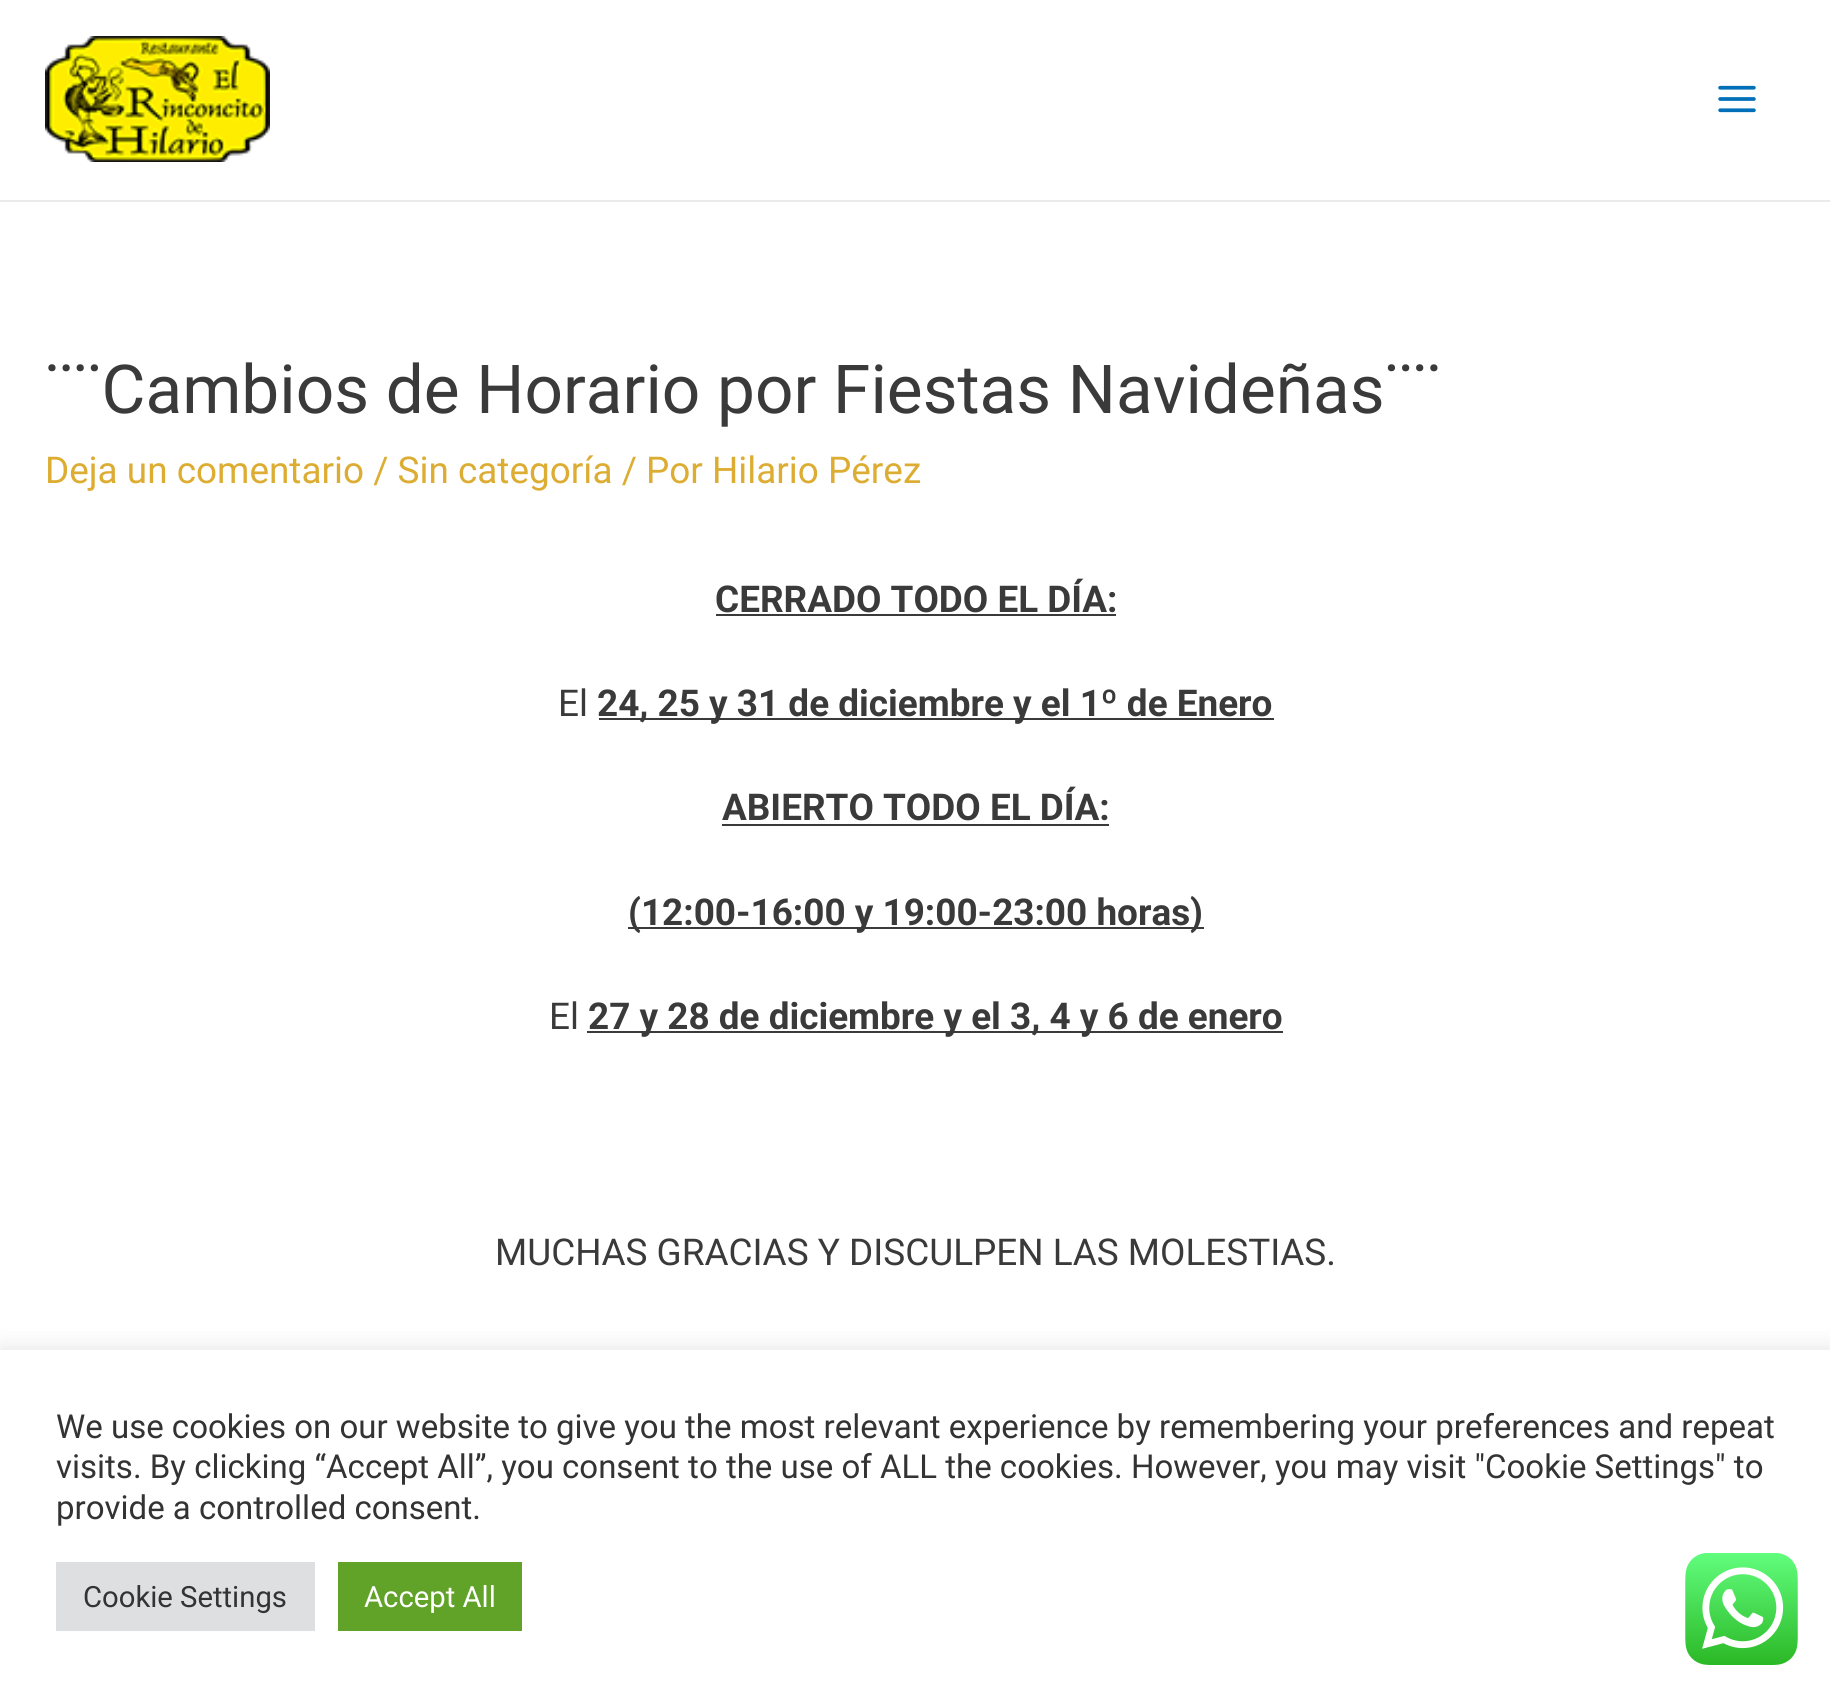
import math
import cairo

surface = cairo.ImageSurface(cairo.FORMAT_RGB24, 1830, 1698)
c = cairo.Context(surface)
options = cairo.FontOptions()
options.set_hint_metrics(cairo.HINT_METRICS_OFF)
options.set_hint_style(cairo.HINT_STYLE_NONE)
c.set_font_options(options)
c.set_miter_limit(4)
def C(code):
 c.set_source_rgb(*(v / 255 for v in bytes.fromhex(code[-6:])))
def F(family, size, italic, bold):
 c.select_font_face(family, cairo.FONT_SLANT_ITALIC if italic else cairo.FONT_SLANT_NORMAL, cairo.FONT_WEIGHT_BOLD if bold else cairo.FONT_WEIGHT_NORMAL)
 c.set_font_size(size)
def T(x, y, s):
 c.move_to(x, y)
 c.show_text(s)
def R(x, y, w, h):
 c.rectangle(x, y, w, h)
 c.fill()
def Q(x, y, w, h, r):
 c.new_sub_path()
 for i, (u, v) in enumerate([(x + w - r, y + h - r), (x + r, y + h - r), (x + r, y + r), (x + w - r, y + r)]):
  c.arc(u, v, r, i * math.pi / 2, (i + 1) * math.pi / 2)
 c.close_path()
def S(x, y, w, h, r, blur, alpha):
 c.push_group_with_content(cairo.CONTENT_ALPHA)
 c.set_operator(cairo.OPERATOR_SOURCE)
 for i in range(15, -16, -2):
  e = blur * i / 6
  if min(w, h) + 2 * e > 0:
   c.set_source_rgba(0, 0, 0, alpha * math.erfc((i - 1) / 8.5) / 2)
   Q(x - e, y - e, w + 2 * e, h + 2 * e, max(0, min(r + e + blur * .6, min(w, h) / 2 + e)))
   c.fill()
 c.mask(c.pop_group())
def I(path, x, y, w, h):
 c.save()
 c.set_source_surface(cairo.ImageSurface.create_from_png(path), x, y)
 c.rectangle(x, y, w, h)
 c.fill()
 c.restore()
C('ffffff')
c.paint()
C('eaeaea')
R(0,200,1830,2)
I('1.png',45,36,225,126)
I('2.png',1718,85,38,28)
F('Roboto',67.5,0,0)
C('3a3a3a')
T(45,413,'¨¨Cambios de Horario por Fiestas Navideñas¨¨')
F('Roboto',36.9,0,0)
C('dcad32')
T(45,483,'Deja un comentario / Sin categoría / Por Hilario Pérez')
F('Roboto',36.9,0,1)
C('3a3a3a')
T(715,612,'CERRADO TODO EL DÍA:')
R(716,614,400,2)
F('Roboto',36.9,0,0)
T(558,716,'El')
R(599,718,675,2)
F('Roboto',36.9,0,1)
T(597,716,'24, 25 y 31 de diciembre y el 1º de Enero')
T(722,820,'ABIERTO TODO EL DÍA:')
R(722,824,387,2)
R(628,927,576,2)
T(628,925,'(12:00-16:00 y 19:00-23:00 horas)')
F('Roboto',36.9,0,0)
T(549,1029,'El')
R(587,1031,696,2)
F('Roboto',36.9,0,1)
T(588,1029,'27 y 28 de diciembre y el 3, 4 y 6 de enero')
F('Roboto',36.9,0,0)
T(495,1265,'MUCHAS GRACIAS Y DISCULPEN LAS MOLESTIAS.')
C('acabab')
S(0,1348,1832,349,0,11,.3)
C('ffffff')
R(0,1350,1830,348)
F('Roboto',33,0,0)
C('333333')
T(56,1438,'We use cookies on our website to give you the most relevant experience by remembering your preferences and repeat')
T(56,1478,'visits. By clicking “Accept All”, you consent to the use of ALL the cookies. However, you may visit "Cookie Settings" to')
T(56,1519,'provide a controlled consent.')
C('dedfe0')
R(56,1562,259,69)
F('Roboto',29.25,0,0)
C('333333')
T(83,1607,'Cookie Settings')
C('61a229')
R(338,1562,184,69)
C('ffffff')
T(364,1607,'Accept All')
I('3.png',1685,1553,113,112)
surface.write_to_png('o.png')
